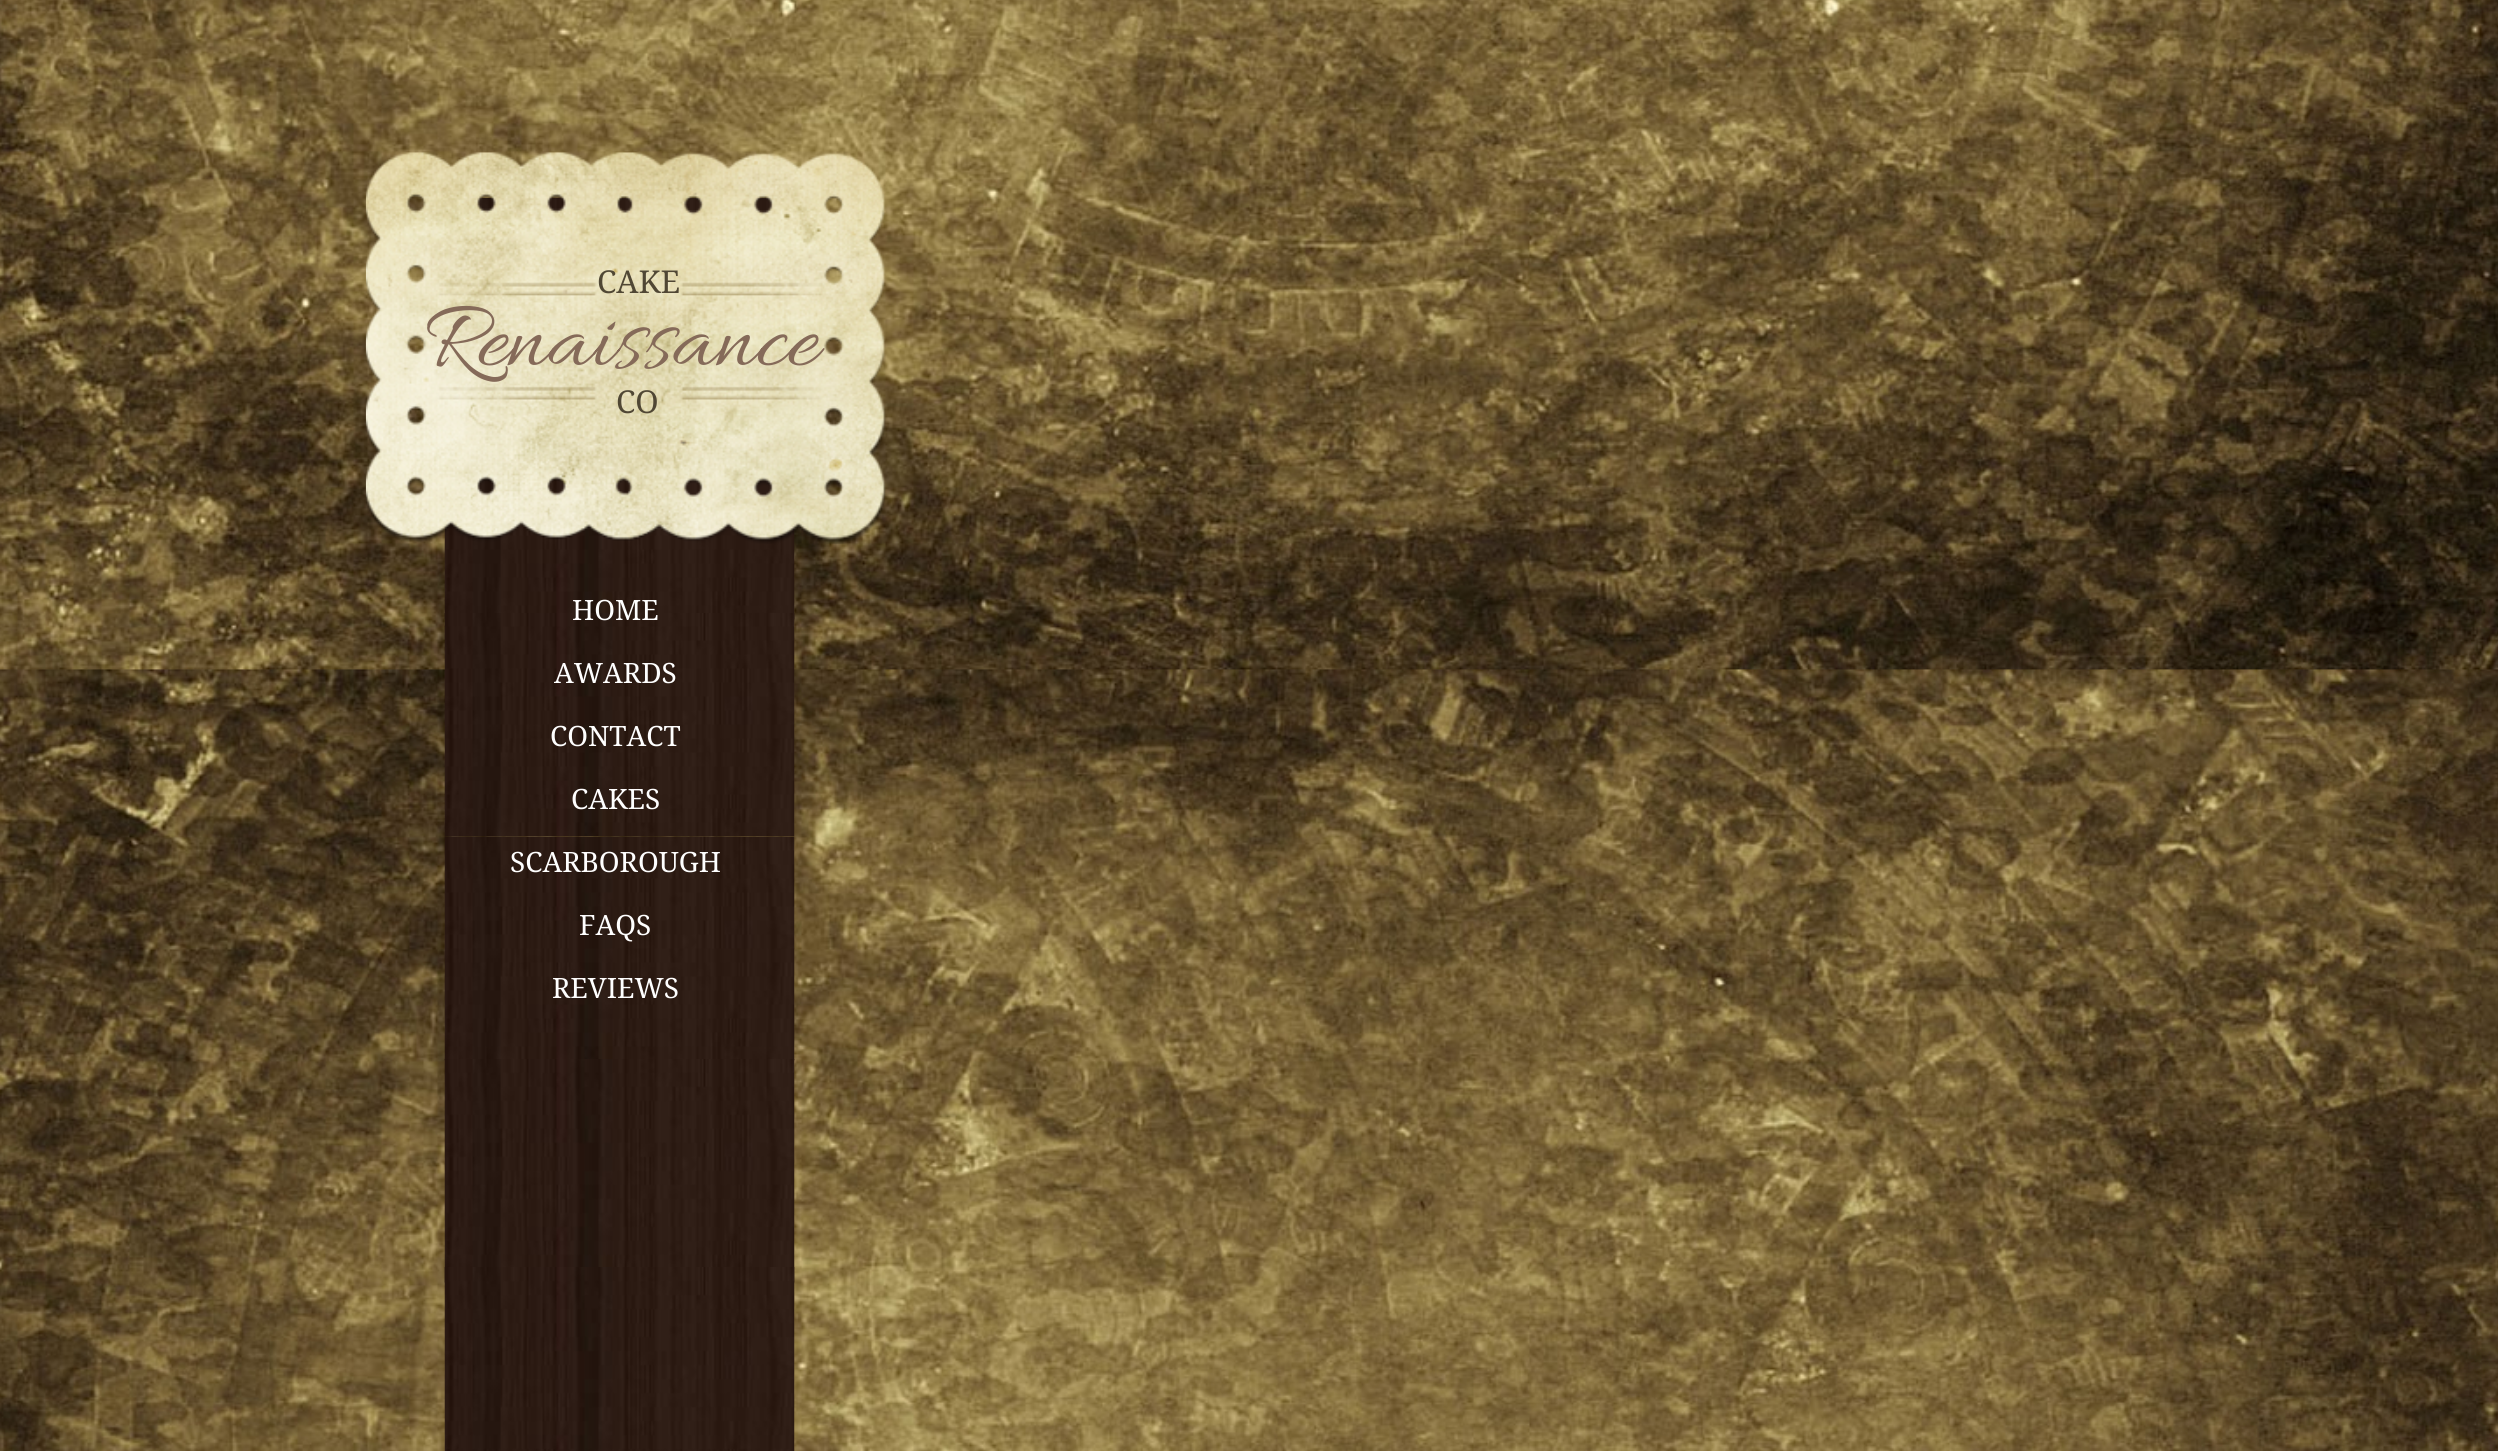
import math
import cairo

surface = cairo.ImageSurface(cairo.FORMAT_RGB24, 2498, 1451)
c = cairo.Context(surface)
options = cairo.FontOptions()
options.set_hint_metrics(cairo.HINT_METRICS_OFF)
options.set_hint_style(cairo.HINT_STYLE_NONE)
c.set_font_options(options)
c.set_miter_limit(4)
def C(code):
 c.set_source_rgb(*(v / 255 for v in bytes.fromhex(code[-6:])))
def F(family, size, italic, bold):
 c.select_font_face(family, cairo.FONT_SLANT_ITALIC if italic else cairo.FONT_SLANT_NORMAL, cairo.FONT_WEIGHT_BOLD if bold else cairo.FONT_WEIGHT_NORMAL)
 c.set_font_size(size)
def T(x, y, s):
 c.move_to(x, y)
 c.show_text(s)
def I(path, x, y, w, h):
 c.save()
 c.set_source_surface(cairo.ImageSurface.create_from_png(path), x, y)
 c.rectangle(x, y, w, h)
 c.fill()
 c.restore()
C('ffffff')
c.paint()
I('1.png',0,0,2498,1451)
I('3.png',477,197,297,18)
I('4.png',444,475,351,145)
I('2.png',365,152,521,392)
F('Noto Serif',31.5,0,0)
C('504734')
T(597,293,'CAKE')
F('Allura',98,0,0)
C('856a59')
T(424,364,'Renaissance')
F('Noto Serif',31.5,0,0)
C('504734')
T(616,413,'CO')
I('6.png',444,836,351,225)
I('5.png',444,613,351,224)
F('Noto Serif',28,0,0)
C('ffffff')
T(572,620,'HOME')
T(554,683,'AWARDS')
T(550,746,'CONTACT')
T(571,809,'CAKES')
T(510,872,'SCARBOROUGH')
T(579,935,'FAQS')
T(552,998,'REVIEWS')
I('7.png',444,1059,351,224)
I('8.png',444,1267,351,184)
surface.write_to_png('o.png')
